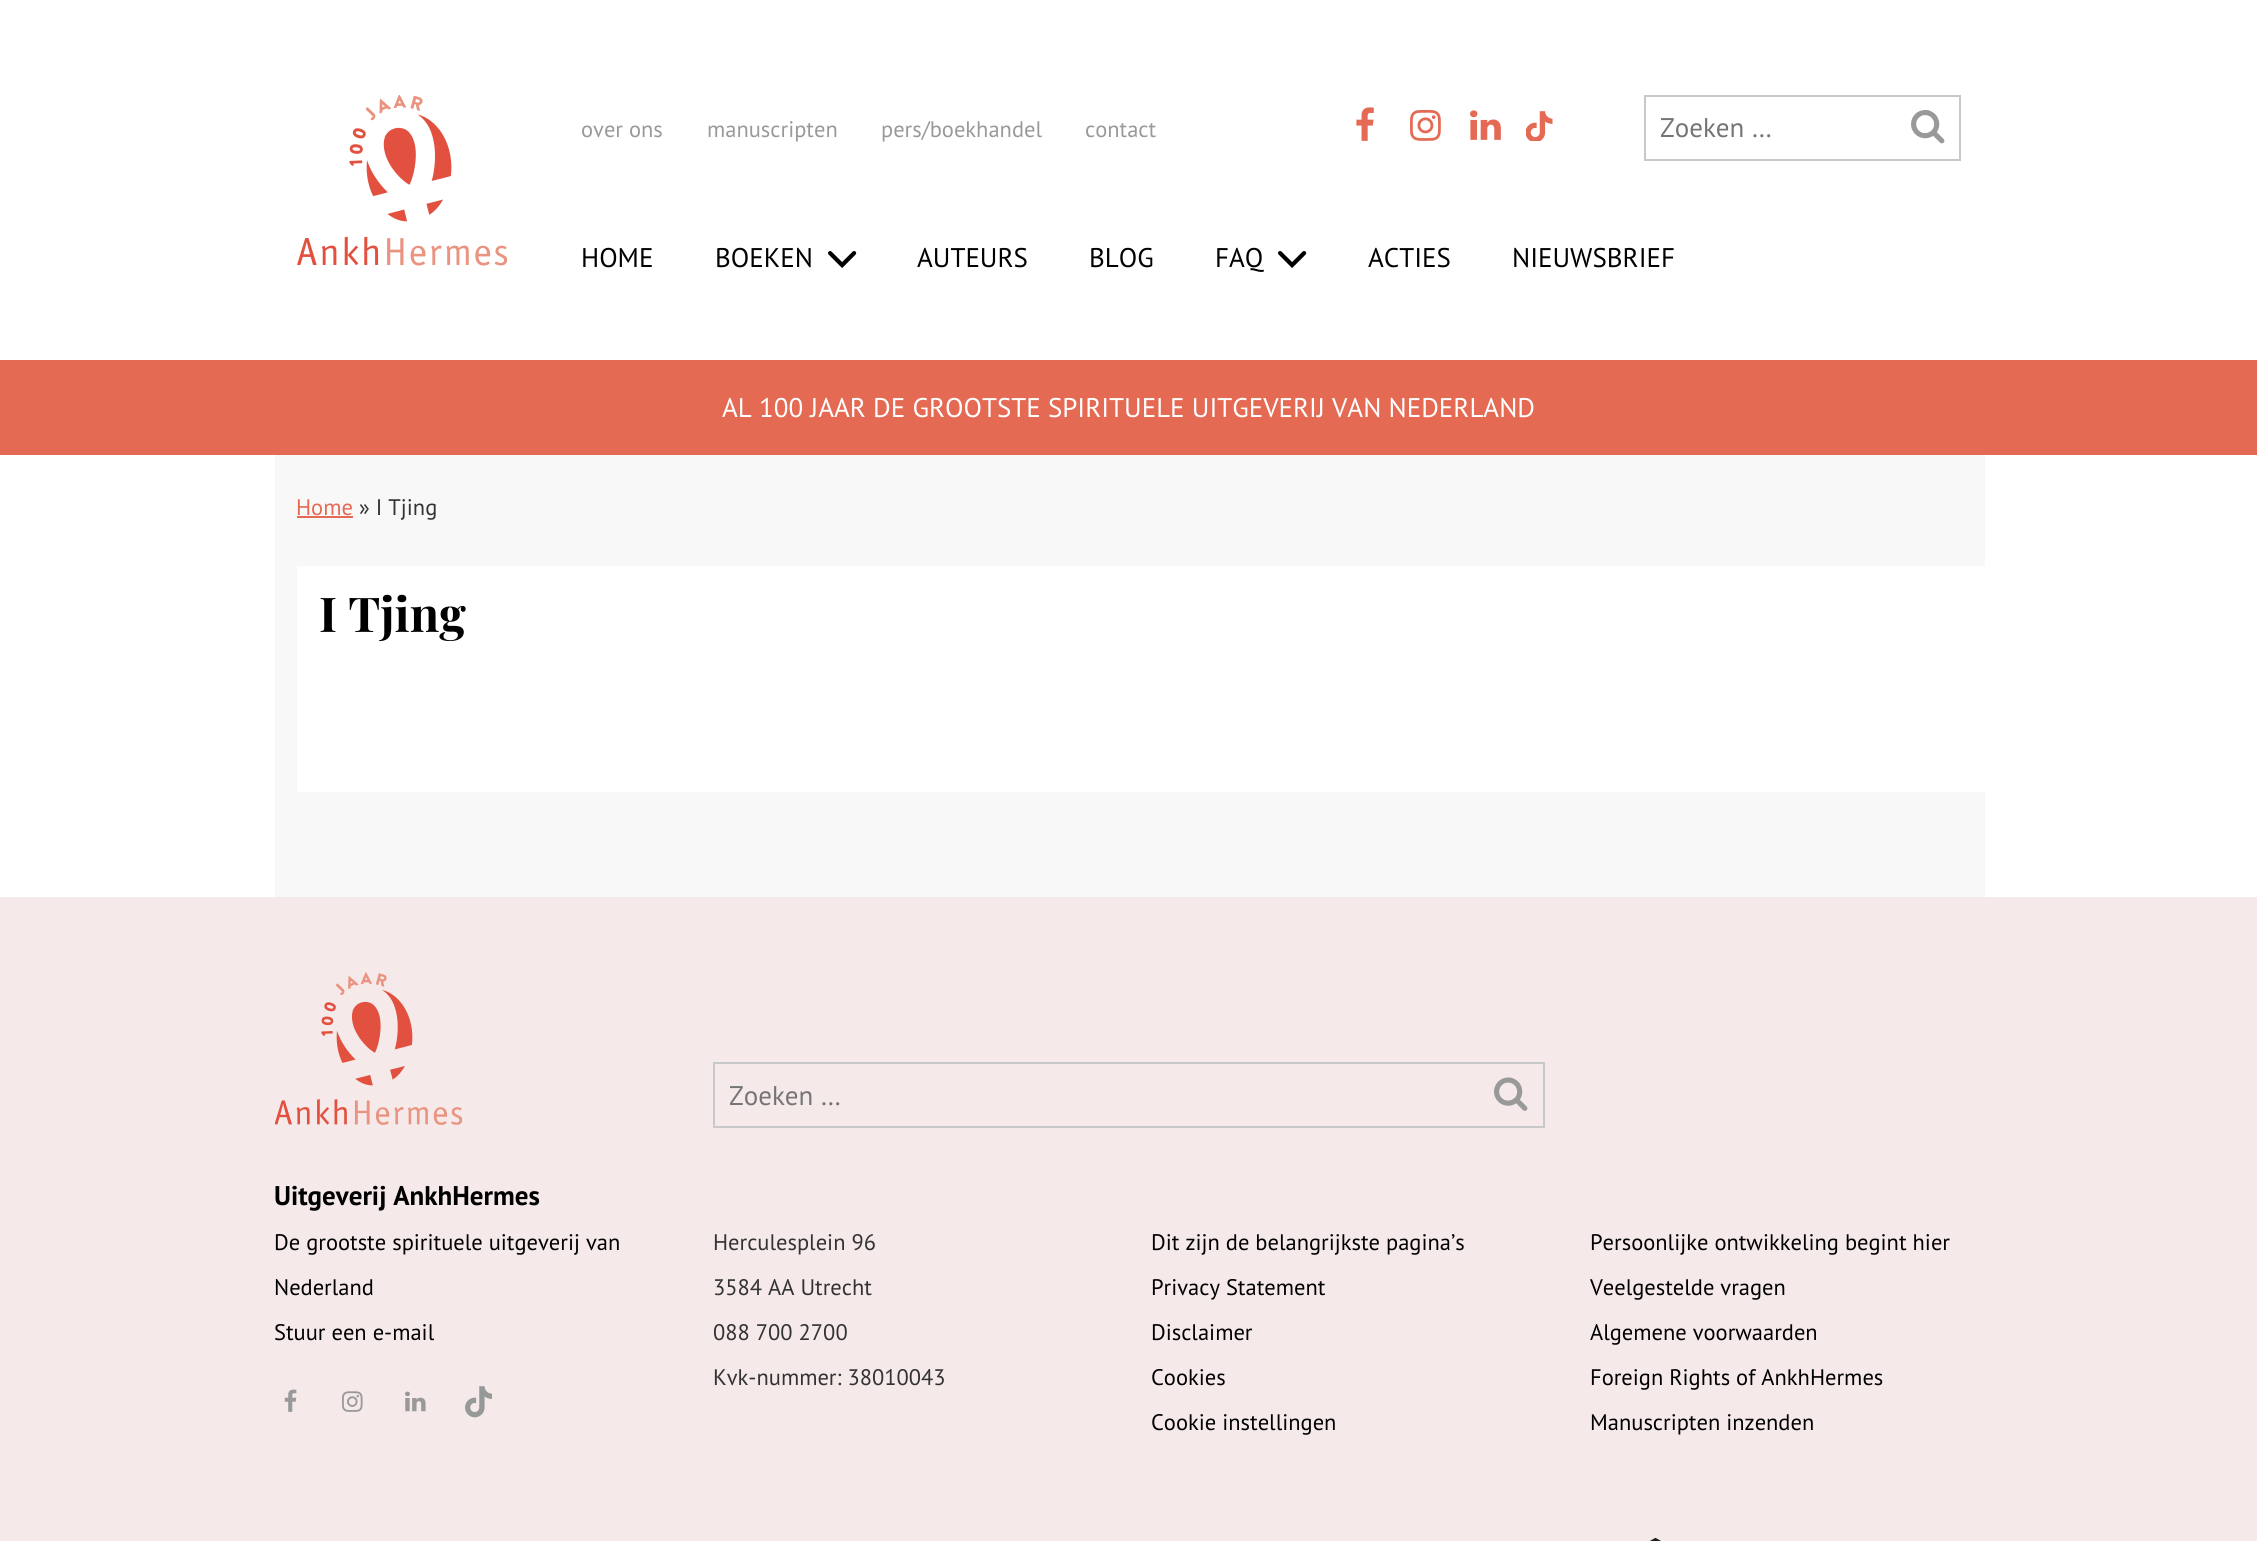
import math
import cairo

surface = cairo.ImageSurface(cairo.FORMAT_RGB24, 2257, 1541)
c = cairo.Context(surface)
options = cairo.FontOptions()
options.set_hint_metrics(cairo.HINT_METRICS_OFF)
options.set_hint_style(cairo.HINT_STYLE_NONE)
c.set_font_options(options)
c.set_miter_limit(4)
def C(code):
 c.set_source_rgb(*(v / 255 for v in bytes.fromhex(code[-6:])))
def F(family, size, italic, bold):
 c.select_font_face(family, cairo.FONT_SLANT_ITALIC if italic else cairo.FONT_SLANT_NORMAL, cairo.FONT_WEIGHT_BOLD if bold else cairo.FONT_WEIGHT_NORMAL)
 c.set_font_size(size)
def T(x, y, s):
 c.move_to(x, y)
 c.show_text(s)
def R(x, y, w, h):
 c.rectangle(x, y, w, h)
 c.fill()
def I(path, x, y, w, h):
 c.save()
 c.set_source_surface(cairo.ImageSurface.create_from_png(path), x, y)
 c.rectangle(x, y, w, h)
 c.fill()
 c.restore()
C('ffffff')
c.paint()
I('1.png',297,95,210,171)
F('PT Sans',22.5,0,0)
C('999999')
T(581,137,'over ons')
T(707,137,'manuscripten')
T(881,137,'pers/boekhandel')
T(1085,137,'contact')
I('2.png',1356,107,18,34)
I('3.png',1410,109,31,32)
I('4.png',1470,110,31,30)
I('5.png',1526,111,27,30)
c.rectangle(1645,96,315,64)
C('c8c8c8')
c.stroke()
F('PT Sans',27,0,0)
C('757575')
T(1660,137,'Zoeken …')
I('6.png',1911,110,34,34)
C('000000')
T(581,267,'HOME')
T(715,267,'BOEKEN')
I('7.png',828,251,29,17)
T(917,267,'AUTEURS')
T(1089,267,'BLOG')
T(1215,267,'FAQ')
I('7.png',1278,251,29,17)
T(1368,267,'ACTIES')
T(1512,267,'NIEUWSBRIEF')
C('e56a54')
R(0,360,2257,95)
C('ffffff')
T(722,417,'AL 100 JAAR DE GROOTSTE SPIRITUELE UITGEVERIJ VAN NEDERLAND')
C('f8f8f8')
R(275,455,1710,442)
F('PT Sans',22.5,0,0)
C('e56a54')
T(296,515,'Home')
R(297,516,56,2)
C('333333')
T(359,515,'» I Tjing')
C('ffffff')
R(297,566,1688,226)
F('Playfair Display',48,0,1)
C('000000')
T(319,632,'I Tjing')
C('f5eae9')
R(0,897,2257,644)
I('8.png',275,972,187,153)
c.rectangle(714,1063,830,64)
C('c8c8c8')
c.stroke()
F('PT Sans',27,0,0)
C('757575')
T(729,1105,'Zoeken …')
I('9.png',1494,1077,34,34)
F('PT Sans',27,0,1)
C('000000')
T(274,1205,'Uitgeverij AnkhHermes')
F('PT Sans',22.5,0,0)
T(274,1250,'De grootste spirituele uitgeverij van')
T(274,1295,'Nederland')
T(274,1340,'Stuur een e-mail')
I('10.png',284,1389,13,23)
I('11.png',342,1391,21,21)
I('12.png',405,1391,21,21)
I('13.png',465,1386,27,32)
C('333333')
T(713,1250,'Herculesplein 96')
T(713,1295,'3584 AA Utrecht')
T(713,1340,'088 700 2700')
T(713,1385,'Kvk-nummer: 38010043')
C('000000')
T(1151,1250,'Dit zijn de belangrijkste pagina’s')
T(1151,1295,'Privacy Statement')
T(1151,1340,'Disclaimer')
T(1151,1385,'Cookies')
T(1151,1430,'Cookie instellingen')
T(1590,1250,'Persoonlijke ontwikkeling begint hier')
T(1590,1295,'Veelgestelde vragen')
T(1590,1340,'Algemene voorwaarden')
T(1590,1385,'Foreign Rights of AnkhHermes')
T(1590,1430,'Manuscripten inzenden')
I('14.png',1650,1538,11,3)
surface.write_to_png('o.png')
